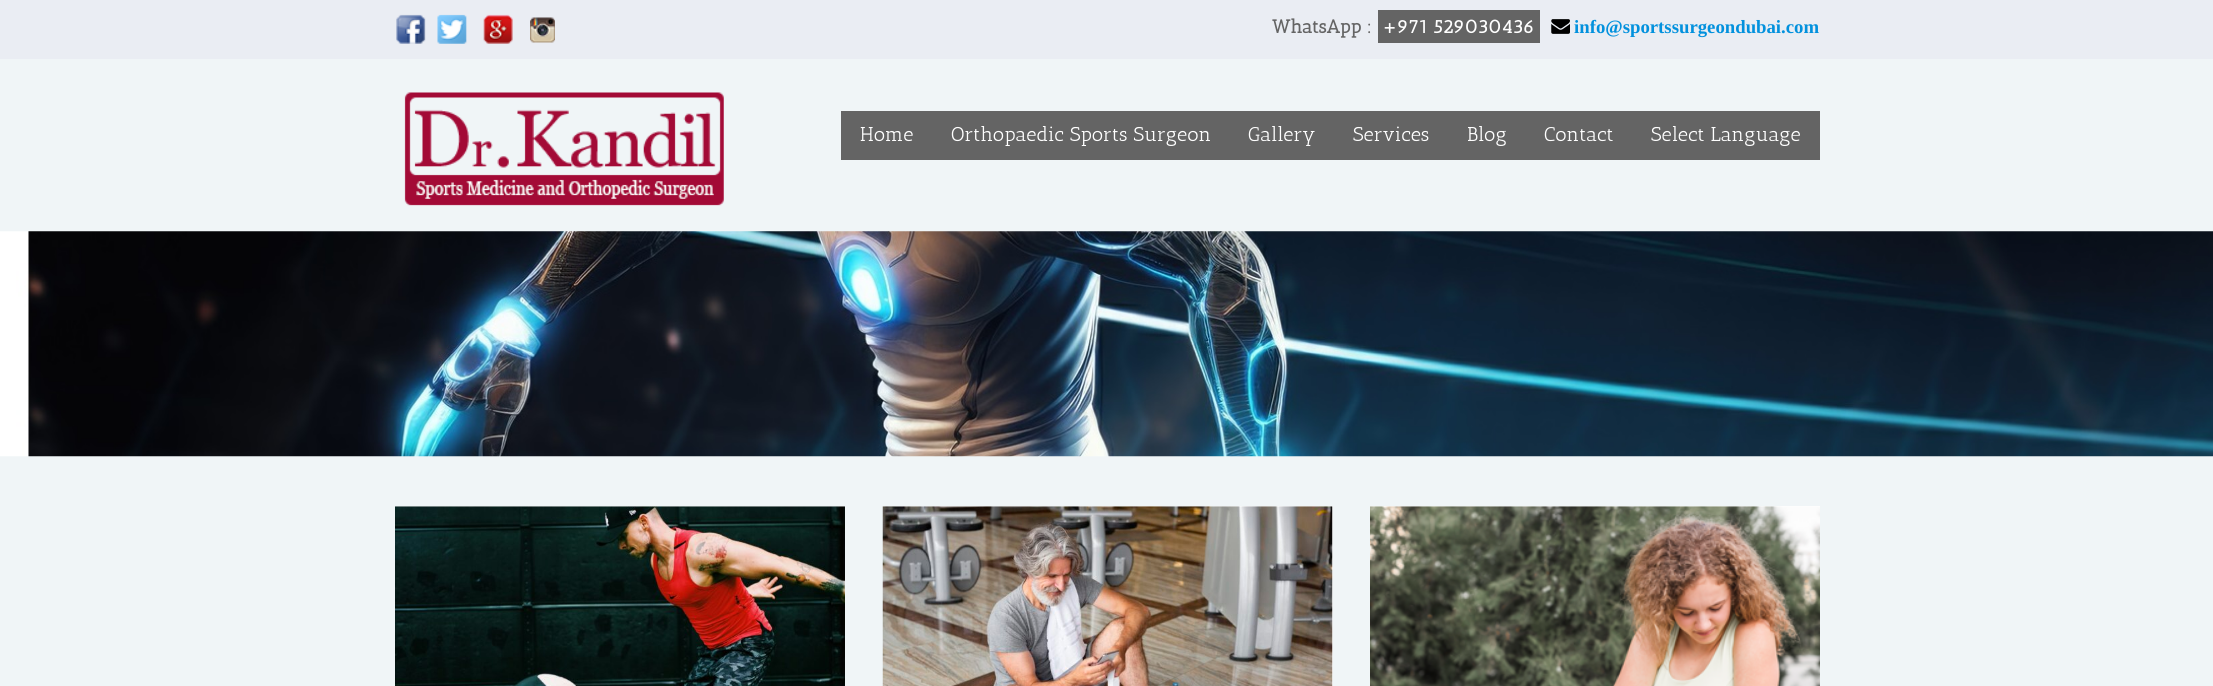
import math
import cairo

surface = cairo.ImageSurface(cairo.FORMAT_RGB24, 2213, 686)
c = cairo.Context(surface)
options = cairo.FontOptions()
options.set_hint_metrics(cairo.HINT_METRICS_OFF)
options.set_hint_style(cairo.HINT_STYLE_NONE)
c.set_font_options(options)
c.set_miter_limit(4)
def C(code):
 c.set_source_rgb(*(v / 255 for v in bytes.fromhex(code[-6:])))
def F(family, size, italic, bold):
 c.select_font_face(family, cairo.FONT_SLANT_ITALIC if italic else cairo.FONT_SLANT_NORMAL, cairo.FONT_WEIGHT_BOLD if bold else cairo.FONT_WEIGHT_NORMAL)
 c.set_font_size(size)
def T(x, y, s):
 c.move_to(x, y)
 c.show_text(s)
def R(x, y, w, h):
 c.rectangle(x, y, w, h)
 c.fill()
def I(path, x, y, w, h):
 c.save()
 c.set_source_surface(cairo.ImageSurface.create_from_png(path), x, y)
 c.rectangle(x, y, w, h)
 c.fill()
 c.restore()
C('f0f5f7')
c.paint()
C('eaedf3')
R(0,0,2213,59)
I('1.png',396,14,30,30)
I('2.png',437,14,30,30)
I('3.png',483,14,30,30)
I('4.png',530,17,25,26)
F('Antic Slab',18.75,0,1)
C('646464')
T(1272,33,'WhatsApp :')
R(1378,10,162,33)
C('ffffff')
T(1382,33,'+971 529030436')
I('5.png',1551,19,19,15)
F('Liberation Serif',18.75,0,1)
C('0291dd')
T(1574,33,'info@sportssurgeondubai.com')
I('6.png',404,92,320,114)
C('646464')
R(841,111,979,49)
F('Antic Slab',20,0,0)
C('ffffff')
T(860,141,'Home')
T(951,141,'Orthopaedic Sports Surgeon')
T(1248,141,'Gallery')
T(1353,141,'Services')
T(1467,141,'Blog')
T(1544,141,'Contact')
T(1651,141,'Select Language')
I('7.png',0,231,2213,226)
R(395,506,450,1)
I('8.png',395,506,450,180)
R(883,506,450,180)
I('9.png',882,506,451,180)
R(1370,506,450,1)
I('10.png',1370,506,450,180)
surface.write_to_png('o.png')
